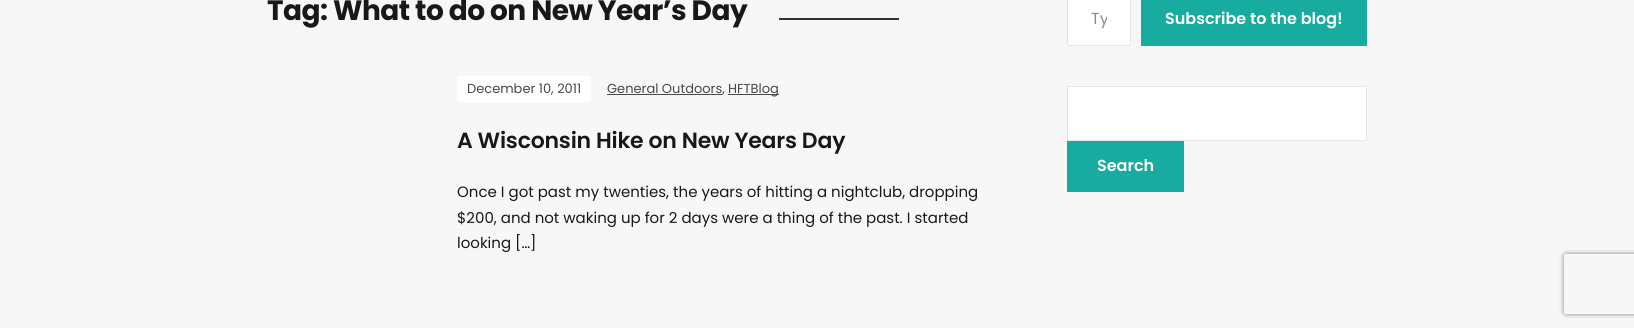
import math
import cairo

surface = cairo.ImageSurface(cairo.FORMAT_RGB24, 1634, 328)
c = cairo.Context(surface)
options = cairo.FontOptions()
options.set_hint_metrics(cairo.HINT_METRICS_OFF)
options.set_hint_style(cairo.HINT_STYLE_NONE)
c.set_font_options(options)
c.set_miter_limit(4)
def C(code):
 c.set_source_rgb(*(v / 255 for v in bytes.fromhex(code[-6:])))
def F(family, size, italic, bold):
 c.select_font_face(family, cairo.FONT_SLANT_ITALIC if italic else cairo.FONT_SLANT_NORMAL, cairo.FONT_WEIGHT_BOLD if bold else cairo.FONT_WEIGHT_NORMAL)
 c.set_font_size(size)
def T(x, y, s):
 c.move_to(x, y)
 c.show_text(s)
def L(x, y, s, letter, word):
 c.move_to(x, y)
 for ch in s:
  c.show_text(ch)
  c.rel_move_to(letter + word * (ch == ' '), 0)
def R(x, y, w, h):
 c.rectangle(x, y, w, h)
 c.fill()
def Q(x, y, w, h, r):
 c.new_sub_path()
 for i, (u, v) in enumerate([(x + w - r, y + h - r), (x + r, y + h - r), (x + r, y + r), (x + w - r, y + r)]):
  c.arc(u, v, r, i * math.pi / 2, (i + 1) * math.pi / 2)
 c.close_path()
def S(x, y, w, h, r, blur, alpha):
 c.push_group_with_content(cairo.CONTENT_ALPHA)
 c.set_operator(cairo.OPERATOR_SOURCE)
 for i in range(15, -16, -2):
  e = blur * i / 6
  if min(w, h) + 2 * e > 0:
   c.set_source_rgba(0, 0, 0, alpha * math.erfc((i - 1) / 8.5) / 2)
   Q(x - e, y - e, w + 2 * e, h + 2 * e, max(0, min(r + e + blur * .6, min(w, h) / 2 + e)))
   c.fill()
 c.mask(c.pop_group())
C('f7f7f7')
c.paint()
F('Poppins',28,0,1)
C('181818')
L(267,20,'Tag: What to do on New Year’s Day',-.5,0)
C('333333')
R(779,18,120,2)
C('ffffff')
R(457,76,134,26)
F('Poppins',13,0,0)
C('484848')
T(467,93,'December 10, 2011')
R(607,94,115,1)
T(607,93,'General Outdoors,')
R(728,94,51,1)
T(728,93,'HFTBlog')
F('Poppins SemiBold',22,0,0)
C('181818')
L(457,148,'A Wisconsin Hike on New Years Day',-.2,0)
F('Poppins',15,0,0)
T(457,197,'Once I got past my twenties, the years of hitting a nightclub, dropping')
T(457,223,'$200, and not waking up for 2 days were a thing of the past. I started')
T(457,248,'looking […]')
C('ffffff')
c.rectangle(1067.5,-.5,63,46)
c.fill_preserve()
C('e6e6e6')
c.set_line_width(1)
c.stroke()
c.save()
c.rectangle(1091,6,16,25)
c.clip()
F('Poppins',16,0,0)
C('8c8c8c')
T(1091,24,'Ty')
c.restore()
C('18ab9f')
R(1141,0,226,46)
F('Poppins SemiBold',16,0,0)
C('ffffff')
T(1165,24,'Subscribe to the blog!')
c.rectangle(1067.5,86.5,299,54)
c.fill_preserve()
C('e6e6e6')
c.stroke()
C('18ab9f')
R(1067,141,117,51)
C('ffffff')
T(1097,171,'Search')
c.save()
c.set_fill_rule(cairo.FILL_RULE_EVEN_ODD)
c.new_path()
c.move_to(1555,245)
c.line_to(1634,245)
c.line_to(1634,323)
c.line_to(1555,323)
c.close_path()
c.move_to(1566,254)
c.line_to(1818,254)
c.curve_to(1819,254,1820,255,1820,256)
c.line_to(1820,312)
c.curve_to(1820,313,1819,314,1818,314)
c.line_to(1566,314)
c.curve_to(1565,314,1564,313,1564,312)
c.line_to(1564,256)
c.curve_to(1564,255,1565,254,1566,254)
c.close_path()
c.clip()
C('808080')
S(1564,254,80,60,2,2.5,1)
c.restore()
surface.write_to_png('o.png')
